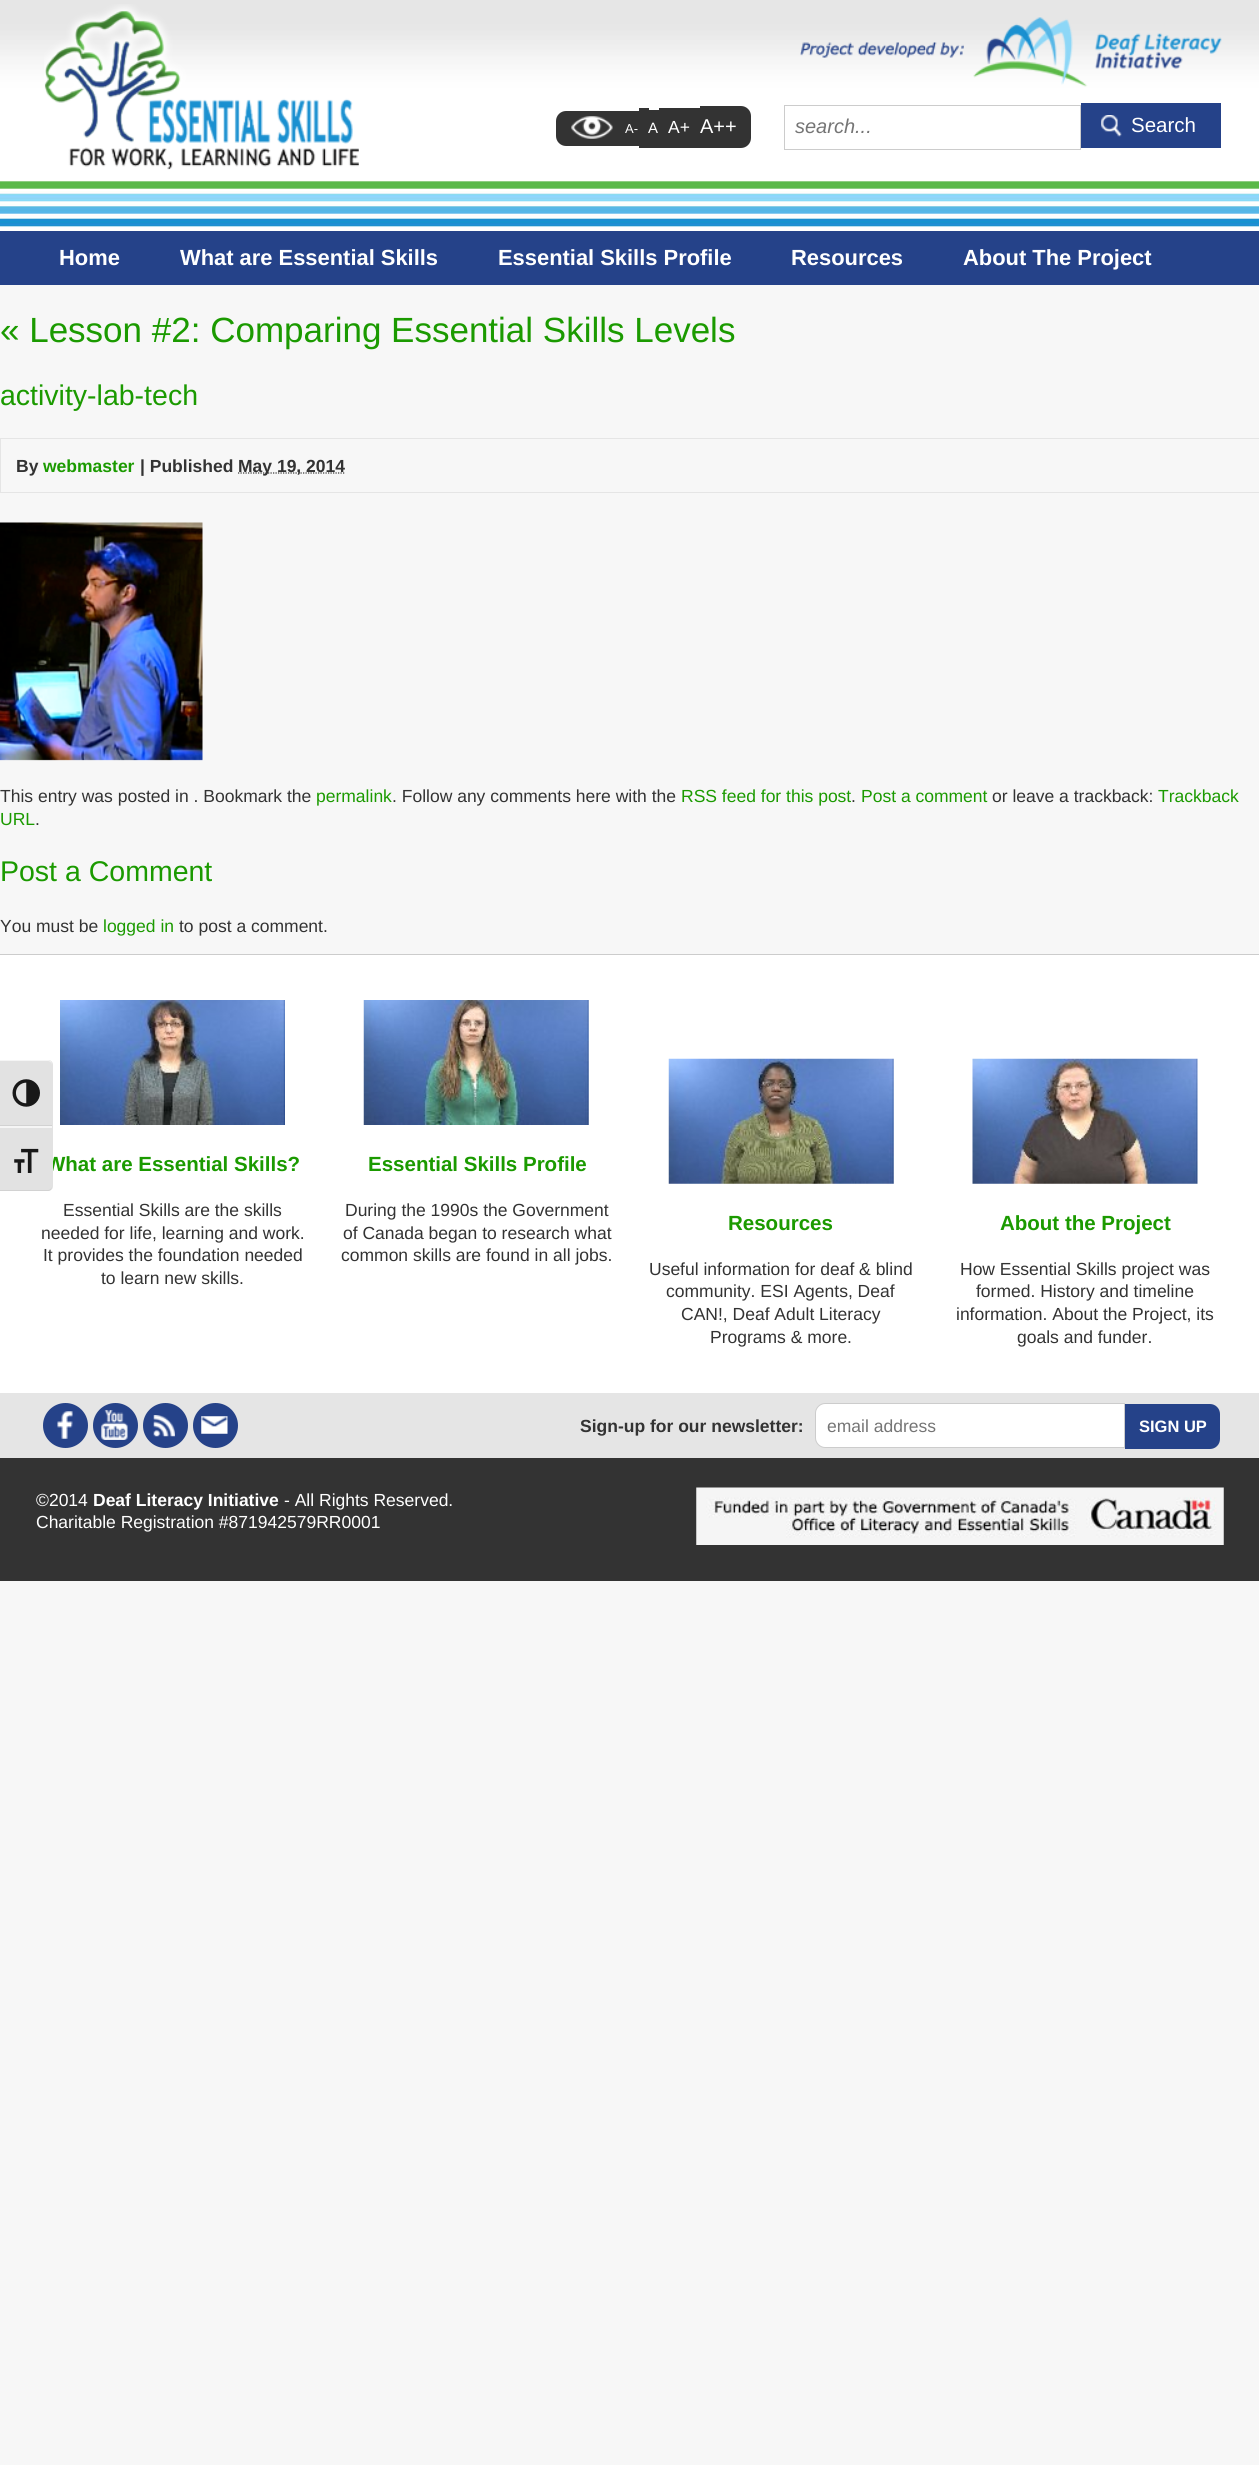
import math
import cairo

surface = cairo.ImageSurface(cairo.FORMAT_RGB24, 1259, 2465)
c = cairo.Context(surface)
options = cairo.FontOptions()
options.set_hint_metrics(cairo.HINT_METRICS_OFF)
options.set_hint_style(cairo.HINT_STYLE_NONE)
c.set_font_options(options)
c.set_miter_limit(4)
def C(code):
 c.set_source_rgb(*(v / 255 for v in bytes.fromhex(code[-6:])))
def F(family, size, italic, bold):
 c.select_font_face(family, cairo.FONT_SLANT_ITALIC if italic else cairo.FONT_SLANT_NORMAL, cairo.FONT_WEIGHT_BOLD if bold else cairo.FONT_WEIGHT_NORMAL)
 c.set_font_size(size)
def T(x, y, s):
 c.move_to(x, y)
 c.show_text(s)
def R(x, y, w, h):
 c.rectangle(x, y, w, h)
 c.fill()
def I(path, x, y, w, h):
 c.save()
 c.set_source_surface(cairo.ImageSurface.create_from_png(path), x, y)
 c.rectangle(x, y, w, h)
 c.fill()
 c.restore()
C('f7f7f7')
c.paint()
I('1.png',0,0,1259,231)
I('2.png',44,4,315,166)
I('3.png',800,17,422,70)
C('333333')
c.new_path()
c.move_to(566,111)
c.line_to(639,111)
c.line_to(639,146)
c.line_to(566,146)
c.curve_to(560.5,146,556,141.5,556,136)
c.line_to(556,121)
c.curve_to(556,115.5,560.5,111,566,111)
c.close_path()
c.fill()
I('4.png',571,116,42,23)
F('Arimo',13,0,0)
C('ffffff')
T(625,133,'A-')
C('333333')
R(639,108,10,40)
R(649,110,10,38)
F('Arimo',15,0,0)
C('ffffff')
T(648,133,'A')
C('333333')
R(659,108,41,40)
F('Arimo',17.5,0,0)
C('ffffff')
T(668,133,'A+')
C('333333')
c.new_path()
c.move_to(700,106)
c.line_to(741,106)
c.curve_to(746.5,106,751,110.5,751,116)
c.line_to(751,138)
c.curve_to(751,143.5,746.5,148,741,148)
c.line_to(700,148)
c.close_path()
c.fill()
F('Arimo',20,0,0)
C('ffffff')
T(700,133,'A++')
c.rectangle(784.5,105.5,296,44)
C('cccccc')
c.set_line_width(1)
c.stroke()
F('Liberation Sans',20,1,0)
C('757575')
T(795,133,'search...')
C('254289')
R(1081,103,140,45)
I('5.png',1101,115,21,22)
F('Liberation Sans',20.5,0,0)
C('ffffff')
T(1131,132,'Search')
C('254289')
R(0,231,1259,54)
F('Arimo',21.9,0,1)
C('ffffff')
T(59,265,'Home')
T(180,265,'What are Essential Skills')
T(498,265,'Essential Skills Profile')
T(791,265,'Resources')
T(963,265,'About The Project')
F('Arimo',35,0,0)
C('1b9a00')
T(0,342,'« Lesson #2: Comparing Essential Skills Levels')
F('Arimo',28.5,0,0)
T(0,405,'activity-lab-tech')
c.rectangle(.5,438.5,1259,54)
C('e5e5e5')
c.stroke()
F('Arimo',17.5,0,1)
C('333333')
T(16,472,'By')
C('1b9a00')
T(43,472,'webmaster')
C('333333')
T(140,472,'| Published')
c.new_path()
c.move_to(238,473)
c.line_to(345,473)
c.set_line_width(1.2)
c.set_dash([1.25,1.25])
c.stroke()
T(238,472,'May 19, 2014')
I('6.png',0,522,203,239)
F('Arimo',17.5,0,0)
T(0,802,'This entry was posted in . Bookmark the')
C('1b9a00')
T(316,802,'permalink')
C('333333')
T(392,802,'. Follow any comments here with the')
C('1b9a00')
T(681,802,'RSS feed for this post')
C('333333')
T(851,802,'.')
C('1b9a00')
T(861,802,'Post a comment')
C('333333')
T(992,802,'or leave a trackback:')
C('1b9a00')
T(1158,802,'Trackback')
T(0,825,'URL')
C('333333')
T(35,825,'.')
F('Arimo',28.5,0,0)
C('1b9a00')
T(0,881,'Post a Comment')
F('Arimo',17.5,0,0)
C('333333')
T(0,932,'You must be')
C('1b9a00')
T(103,932,'logged in')
C('333333')
T(179,932,'to post a comment.')
C('ffffff')
R(0,955,1259,438)
C('cccccc')
R(0,954,1259,1)
I('7.png',60,1000,225,125)
F('Arimo',20.5,0,1)
C('1b9a00')
T(46,1171,'What are Essential Skills?')
F('Arimo',17.5,0,0)
C('333333')
T(63,1216,'Essential Skills are the skills')
T(41,1239,'needed for life, learning and work.')
T(43,1261,'It provides the foundation needed')
T(101,1284,'to learn new skills.')
I('8.png',363,1000,226,125)
F('Arimo',20.5,0,1)
C('1b9a00')
T(368,1171,'Essential Skills Profile')
F('Arimo',17.5,0,0)
C('333333')
T(345,1216,'During the 1990s the Government')
T(343,1239,'of Canada began to research what')
T(341,1261,'common skills are found in all jobs.')
I('9.png',668,1058,226,126)
F('Arimo',20.5,0,1)
C('1b9a00')
T(728,1230,'Resources')
F('Arimo',17.5,0,0)
C('333333')
T(649,1275,'Useful information for deaf & blind')
T(666,1297,'community. ESI Agents, Deaf')
T(681,1320,'CAN!, Deaf Adult Literacy')
T(710,1343,'Programs & more.')
I('10.png',972,1058,226,126)
F('Arimo',20.5,0,1)
C('1b9a00')
T(1000,1230,'About the Project')
F('Arimo',17.5,0,0)
C('333333')
T(960,1275,'How Essential Skills project was')
T(976,1297,'formed. History and timeline')
T(956,1320,'information. About the Project, its')
T(1017,1343,'goals and funder.')
C('e5e5e5')
R(0,1393,1259,65)
C('254289')
c.new_path()
c.arc(65.5,1425.5,22.5,0,2 * math.pi)
c.fill()
I('11.png',57,1411,16,28)
c.arc(115.5,1425.5,22.5,0,2 * math.pi)
c.fill()
I('12.png',101,1410,27,30)
c.arc(165.5,1425.5,22.5,0,2 * math.pi)
c.fill()
I('13.png',153,1415,22,22)
c.arc(215.5,1425.5,22.5,0,2 * math.pi)
c.fill()
I('14.png',201,1416,27,18)
F('Arimo',17.5,0,1)
C('333333')
T(580,1432,'Sign-up for our newsletter:')
C('ffffff')
c.new_path()
c.move_to(825,1403.5)
c.line_to(1124.5,1403.5)
c.line_to(1124.5,1447.5)
c.line_to(825,1447.5)
c.curve_to(820,1447.5,815.5,1443,815.5,1438)
c.line_to(815.5,1413)
c.curve_to(815.5,1408,820,1403.5,825,1403.5)
c.close_path()
c.fill_preserve()
C('cccccc')
c.set_line_width(1)
c.set_dash([])
c.stroke()
F('Liberation Sans',17.5,0,0)
C('757575')
T(827,1432,'email address')
C('254289')
c.new_path()
c.move_to(1125,1404)
c.line_to(1210,1404)
c.curve_to(1215.5,1404,1220,1408.5,1220,1414)
c.line_to(1220,1439)
c.curve_to(1220,1444.5,1215.5,1449,1210,1449)
c.line_to(1125,1449)
c.close_path()
c.fill()
F('Liberation Sans',16.5,0,1)
C('ffffff')
T(1139,1432,'SIGN UP')
C('e2e2e2')
c.new_path()
c.move_to(0,1060)
c.line_to(48,1060)
c.curve_to(51,1060,53,1062,53,1065)
c.line_to(53,1126)
c.line_to(0,1126)
c.close_path()
c.fill()
C('f5f5f5')
c.new_path()
c.move_to(0,1060)
c.line_to(0,1061)
c.line_to(48,1061)
c.curve_to(50,1061,52,1063,52,1065)
c.curve_to(52,1062,50,1060,48,1060)
c.close_path()
c.fill()
C('d2d2d2')
R(0,1125,52,1)
I('15.png',12,1079,28,28)
C('e2e2e2')
c.new_path()
c.move_to(0,1126)
c.line_to(53,1126)
c.line_to(53,1186)
c.curve_to(53,1189,51,1191,48,1191)
c.line_to(0,1191)
c.close_path()
c.fill()
C('f5f5f5')
R(0,1126,52,2)
C('d2d2d2')
c.new_path()
c.move_to(48,1191)
c.curve_to(50,1191,52,1189,52,1186)
c.curve_to(52,1188,50,1190,48,1190)
c.line_to(0,1190)
c.line_to(0,1191)
c.close_path()
c.fill()
I('16.png',14,1148,25,25)
C('333333')
R(0,1458,1259,123)
F('Arimo',17.5,0,0)
C('ffffff')
T(36,1506,'©2014')
F('Arimo',17.5,0,1)
T(93,1506,'Deaf Literacy Initiative')
F('Arimo',17.5,0,0)
T(284,1506,'- All Rights Reserved.')
T(36,1528,'Charitable Registration #871942579RR0001')
I('17.png',696,1487,528,58)
surface.write_to_png('o.png')
